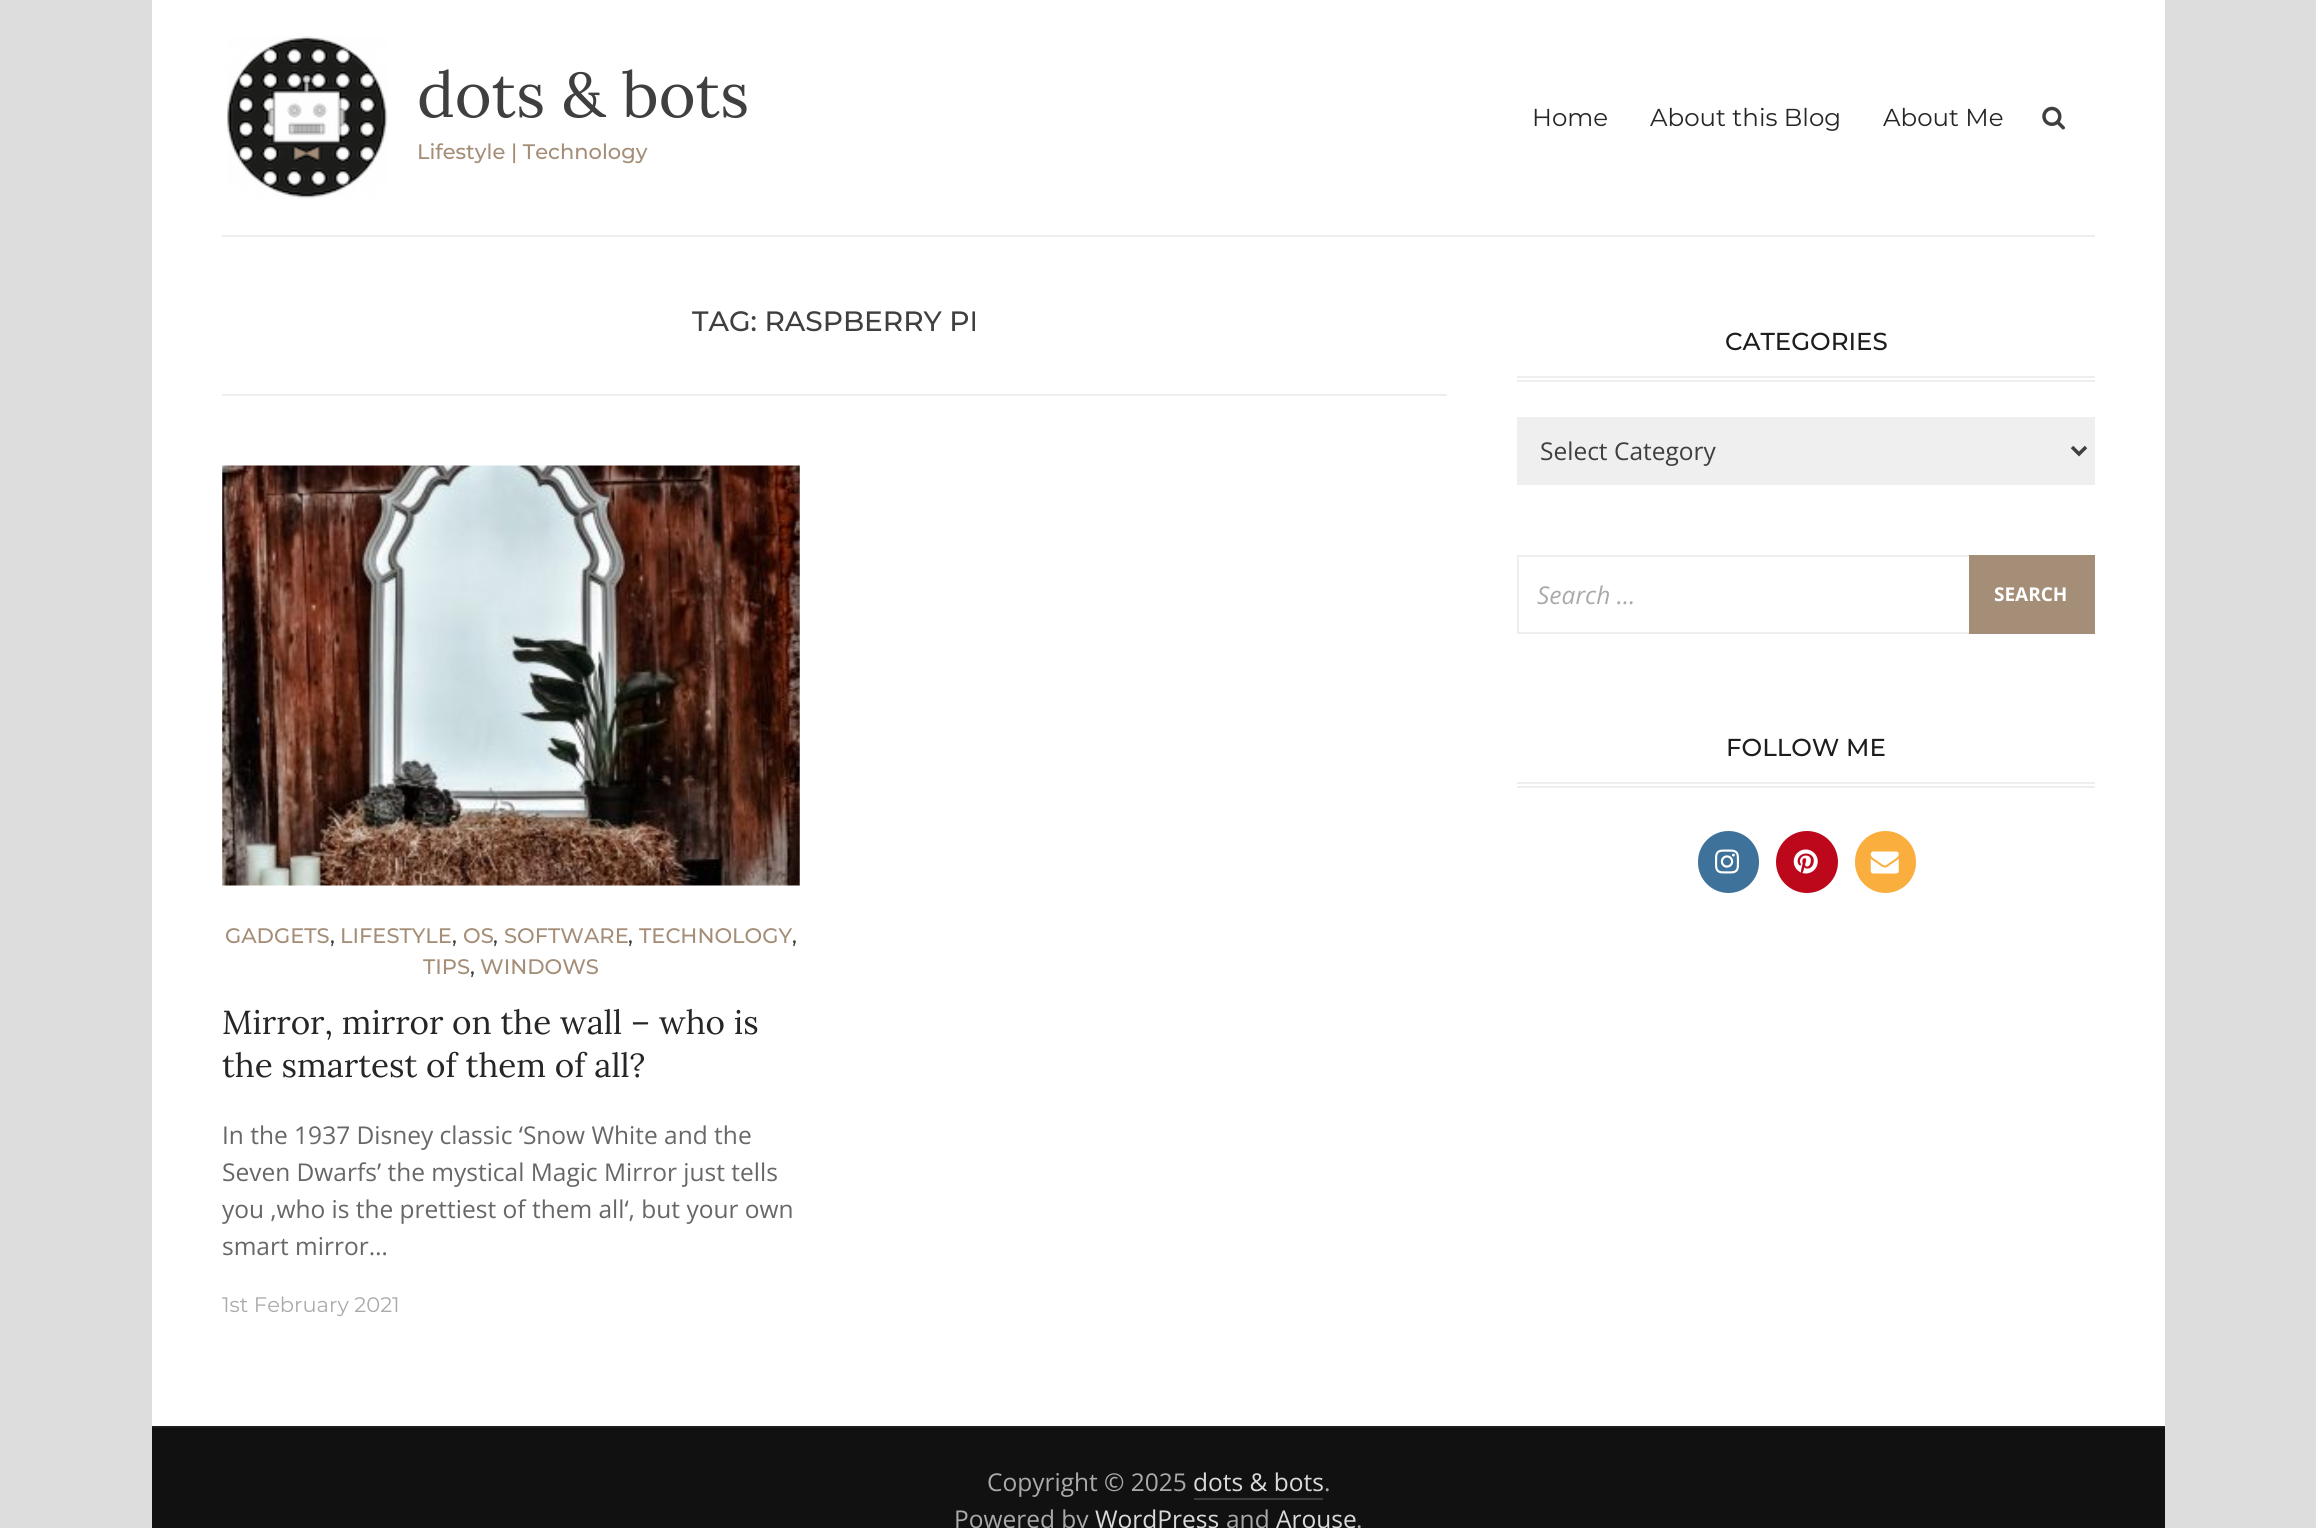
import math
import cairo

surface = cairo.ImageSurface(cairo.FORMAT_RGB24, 2316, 1528)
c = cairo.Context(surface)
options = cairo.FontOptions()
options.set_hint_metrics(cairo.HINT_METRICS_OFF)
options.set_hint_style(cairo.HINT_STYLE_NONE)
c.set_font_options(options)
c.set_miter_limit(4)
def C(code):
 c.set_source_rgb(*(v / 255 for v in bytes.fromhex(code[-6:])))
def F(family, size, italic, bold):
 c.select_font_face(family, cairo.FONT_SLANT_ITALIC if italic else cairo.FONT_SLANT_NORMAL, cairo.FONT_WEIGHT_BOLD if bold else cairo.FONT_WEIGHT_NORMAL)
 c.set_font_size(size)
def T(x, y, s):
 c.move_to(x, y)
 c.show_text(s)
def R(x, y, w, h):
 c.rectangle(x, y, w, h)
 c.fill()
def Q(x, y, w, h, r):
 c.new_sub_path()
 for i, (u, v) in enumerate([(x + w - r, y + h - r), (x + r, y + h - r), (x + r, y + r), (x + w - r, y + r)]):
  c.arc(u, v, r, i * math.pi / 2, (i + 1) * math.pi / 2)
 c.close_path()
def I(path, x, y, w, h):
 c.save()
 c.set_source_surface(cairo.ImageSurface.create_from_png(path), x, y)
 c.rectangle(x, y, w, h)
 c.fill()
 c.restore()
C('dddddd')
c.paint()
C('ffffff')
R(152,0,2013,1426)
C('eeeeee')
R(222,235,1873,2)
I('1.png',227,36,161,163)
F('Lora',63,0,0)
C('3f3f3f')
T(417,117,'dots & bots')
F('Montserrat Medium',21,0,0)
C('a58e78')
T(417,159,'Lifestyle | Technology')
F('Montserrat',24.5,0,0)
C('262626')
T(1532,126,'Home')
T(1650,126,'About this Blog')
T(1883,126,'About Me')
I('2.png',2042,106,23,24)
C('eeeeee')
R(222,394,1225,2)
F('Montserrat Medium',28,0,0)
C('3f3f3f')
T(692,331,'TAG: RASPBERRY PI')
I('3.png',222,465,578,421)
F('Montserrat Medium',21,0,0)
C('a58e78')
T(225,943,'GADGETS')
C('3f3f3f')
T(330,943,',')
C('a58e78')
T(340,943,'LIFESTYLE')
C('3f3f3f')
T(452,943,',')
C('a58e78')
T(463,943,'OS')
C('3f3f3f')
T(493,943,',')
C('a58e78')
T(504,943,'SOFTWARE')
C('3f3f3f')
T(628,943,',')
C('a58e78')
T(639,943,'TECHNOLOGY')
C('3f3f3f')
T(792,943,',')
C('a58e78')
T(423,974,'TIPS')
C('3f3f3f')
T(470,974,',')
C('a58e78')
T(480,974,'WINDOWS')
F('Lora',33.25,0,0)
C('262626')
T(222,1034,'Mirror, mirror on the wall – who is')
T(222,1077,'the smartest of them of all?')
F('Open Sans',24.5,0,0)
C('676767')
T(222,1144,'In the 1937 Disney classic ‘Snow White and the')
T(222,1181,'Seven Dwarfs’ the mystical Magic Mirror just tells')
T(222,1218,'you ‚who is the prettiest of them all‘, but your own')
T(222,1255,'smart mirror…')
F('Montserrat',21,0,0)
C('aaaaaa')
T(222,1312,'1st February 2021')
C('eeeeee')
R(1517,376,578,2)
R(1517,380,578,2)
F('Montserrat Medium',24.5,0,0)
C('1d1d1d')
T(1725,350,'CATEGORIES')
C('efefef')
R(1517,417,578,68)
c.new_path()
c.move_to(2072,447)
c.line_to(2079,454)
c.line_to(2086,447)
C('404040')
c.set_line_width(3.5)
c.stroke()
F('Open Sans',24.5,0,0)
C('3f3f3f')
T(1540,460,'Select Category')
c.rectangle(1518,556,576,77)
C('eeeeee')
c.set_line_width(2)
c.stroke()
F('Open Sans',24.5,1,0)
C('aaaaaa')
T(1537,604,'Search …')
C('a58e78')
R(1969,555,126,79)
F('Open Sans',19,0,1)
C('ffffff')
T(1994,601,'SEARCH')
C('eeeeee')
R(1517,782,578,2)
R(1517,786,578,2)
F('Montserrat Medium',24.5,0,0)
C('1d1d1d')
T(1726,756,'FOLLOW ME')
C('3f729b')
Q(1698,831,61,62,30.5)
c.fill()
I('4.png',1715,849,24,25)
C('bd081c')
c.arc(1807,862,31,0,2 * math.pi)
c.fill()
I('5.png',1793,849,25,25)
C('f9ae3d')
Q(1855,831,61,62,30.5)
c.fill()
I('6.png',1870,851,29,23)
C('1d1d1d')
R(152,1426,2013,2)
C('111111')
R(152,1428,2013,100)
F('Open Sans',24.5,0,0)
C('aaaaaa')
T(987,1491,'Copyright © 2025')
C('dadada')
T(1193,1491,'dots & bots')
C('3c3c3c')
R(1194,1498,129,2)
C('aaaaaa')
T(1324,1491,'.')
T(954,1528,'Powered by')
C('dadada')
T(1095,1528,'WordPress')
C('aaaaaa')
T(1226,1528,'and')
C('dadada')
T(1276,1528,'Arouse')
C('aaaaaa')
T(1356,1528,'.')
surface.write_to_png('o.png')
